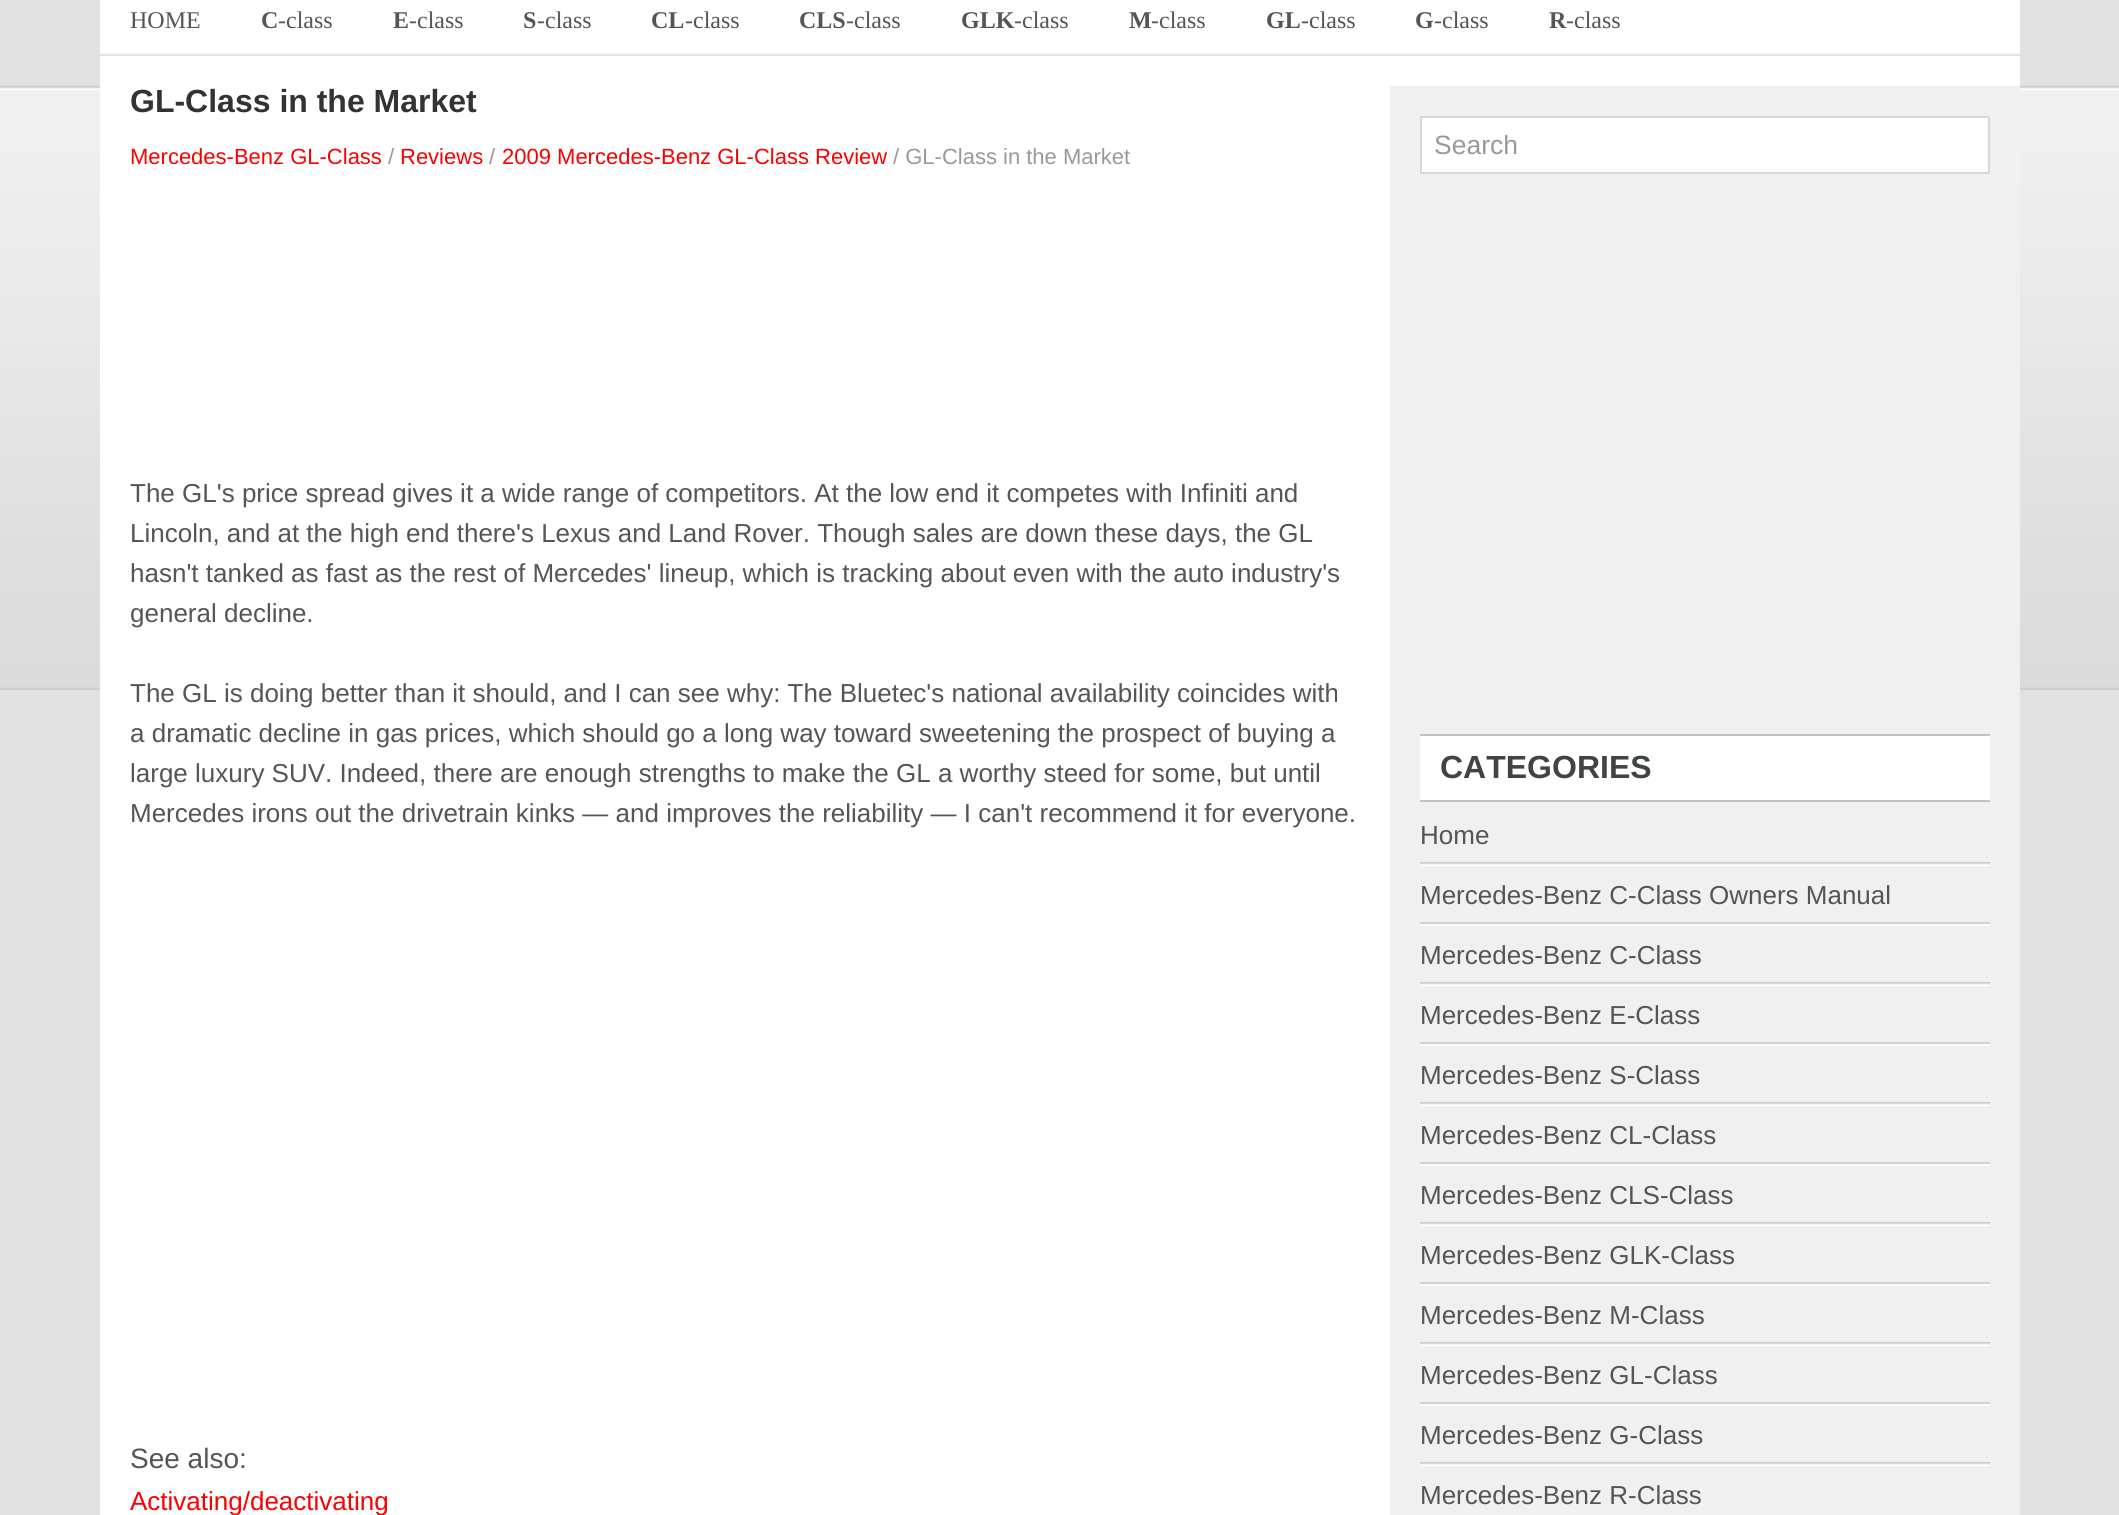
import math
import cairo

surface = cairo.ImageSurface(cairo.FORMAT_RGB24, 2119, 1515)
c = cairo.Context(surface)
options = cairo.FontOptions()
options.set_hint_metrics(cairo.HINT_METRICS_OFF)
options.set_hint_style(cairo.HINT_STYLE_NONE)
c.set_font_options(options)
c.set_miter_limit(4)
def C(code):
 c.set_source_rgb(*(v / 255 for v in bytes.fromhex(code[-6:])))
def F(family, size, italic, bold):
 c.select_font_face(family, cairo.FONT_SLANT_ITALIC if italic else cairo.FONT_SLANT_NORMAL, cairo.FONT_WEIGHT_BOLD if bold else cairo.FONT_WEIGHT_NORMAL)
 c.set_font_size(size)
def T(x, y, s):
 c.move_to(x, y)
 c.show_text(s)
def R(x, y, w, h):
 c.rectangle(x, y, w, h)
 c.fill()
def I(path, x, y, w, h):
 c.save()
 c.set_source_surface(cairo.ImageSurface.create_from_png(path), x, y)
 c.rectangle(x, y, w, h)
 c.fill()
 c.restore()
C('e1e1e1')
c.paint()
I('1.png',0,85,2119,605)
I('2.png',100,0,1920,55)
F('Liberation Serif',24,0,0)
C('555555')
T(130,28,'HOME')
F('Liberation Serif',24,0,1)
T(261,28,'C')
F('Liberation Serif',24,0,0)
T(278,28,'-class')
F('Liberation Serif',24,0,1)
T(393,28,'E')
F('Liberation Serif',24,0,0)
T(409,28,'-class')
F('Liberation Serif',24,0,1)
T(523,28,'S')
F('Liberation Serif',24,0,0)
T(537,28,'-class')
F('Liberation Serif',24,0,1)
T(651,28,'CL')
F('Liberation Serif',24,0,0)
T(685,28,'-class')
F('Liberation Serif',24,0,1)
T(799,28,'CLS')
F('Liberation Serif',24,0,0)
T(846,28,'-class')
F('Liberation Serif',24,0,1)
T(961,28,'GLK')
F('Liberation Serif',24,0,0)
T(1014,28,'-class')
F('Liberation Serif',24,0,1)
T(1129,28,'M')
F('Liberation Serif',24,0,0)
T(1151,28,'-class')
F('Liberation Serif',24,0,1)
T(1266,28,'GL')
F('Liberation Serif',24,0,0)
T(1301,28,'-class')
F('Liberation Serif',24,0,1)
T(1415,28,'G')
F('Liberation Serif',24,0,0)
T(1434,28,'-class')
F('Liberation Serif',24,0,1)
T(1549,28,'R')
F('Liberation Serif',24,0,0)
T(1566,28,'-class')
C('ffffff')
R(100,56,1920,1459)
F('Liberation Sans',32,0,1)
C('333333')
T(130,112,'GL-Class in the Market')
F('Liberation Sans',22,0,0)
C('fa0000')
T(130,164,'Mercedes-Benz GL-Class')
C('999999')
T(388,164,'/')
C('fa0000')
T(400,164,'Reviews')
C('999999')
T(489,164,'/')
C('fa0000')
T(502,164,'2009 Mercedes-Benz GL-Class Review')
C('999999')
T(893,164,'/ GL-Class in the Market')
F('Liberation Sans',26,0,0)
C('555555')
T(130,502,'The GL\'s price spread gives it a wide range of competitors. At the low end it competes with Infiniti and')
T(130,542,'Lincoln, and at the high end there\'s Lexus and Land Rover. Though sales are down these days, the GL')
T(130,582,'hasn\'t tanked as fast as the rest of Mercedes\' lineup, which is tracking about even with the auto industry\'s')
T(130,622,'general decline.')
T(130,702,'The GL is doing better than it should, and I can see why: The Bluetec\'s national availability coincides with')
T(130,742,'a dramatic decline in gas prices, which should go a long way toward sweetening the prospect of buying a')
T(130,782,'large luxury SUV. Indeed, there are enough strengths to make the GL a worthy steed for some, but until')
T(130,822,'Mercedes irons out the drivetrain kinks — and improves the reliability — I can\'t recommend it for everyone.')
F('Liberation Sans',28,0,0)
T(130,1468,'See also:')
F('Liberation Sans',26,0,0)
C('fa0000')
T(130,1510,'Activating/deactivating')
C('f0f0f0')
R(1390,86,630,1429)
C('ffffff')
c.rectangle(1421,117,568,56)
c.fill_preserve()
C('d8d8d8')
c.stroke()
F('Liberation Sans',26.5,0,0)
C('999999')
T(1434,154,'Search')
C('ffffff')
R(1420,736,570,64)
C('c2c0c0')
R(1420,734,570,2)
R(1420,800,570,2)
F('Liberation Sans',32,0,1)
C('414445')
T(1440,778,'CATEGORIES')
I('3.png',1420,862,570,4)
F('Liberation Sans',26,0,0)
C('555555')
T(1420,844,'Home')
I('3.png',1420,922,570,4)
T(1420,904,'Mercedes-Benz C-Class Owners Manual')
I('3.png',1420,982,570,4)
T(1420,964,'Mercedes-Benz C-Class')
I('3.png',1420,1042,570,4)
T(1420,1024,'Mercedes-Benz E-Class')
I('3.png',1420,1102,570,4)
T(1420,1084,'Mercedes-Benz S-Class')
I('3.png',1420,1162,570,4)
T(1420,1144,'Mercedes-Benz CL-Class')
I('3.png',1420,1222,570,4)
T(1420,1204,'Mercedes-Benz CLS-Class')
I('3.png',1420,1282,570,4)
T(1420,1264,'Mercedes-Benz GLK-Class')
I('3.png',1420,1342,570,4)
T(1420,1324,'Mercedes-Benz M-Class')
I('3.png',1420,1402,570,4)
T(1420,1384,'Mercedes-Benz GL-Class')
I('3.png',1420,1462,570,4)
T(1420,1444,'Mercedes-Benz G-Class')
T(1420,1504,'Mercedes-Benz R-Class')
surface.write_to_png('o.png')
